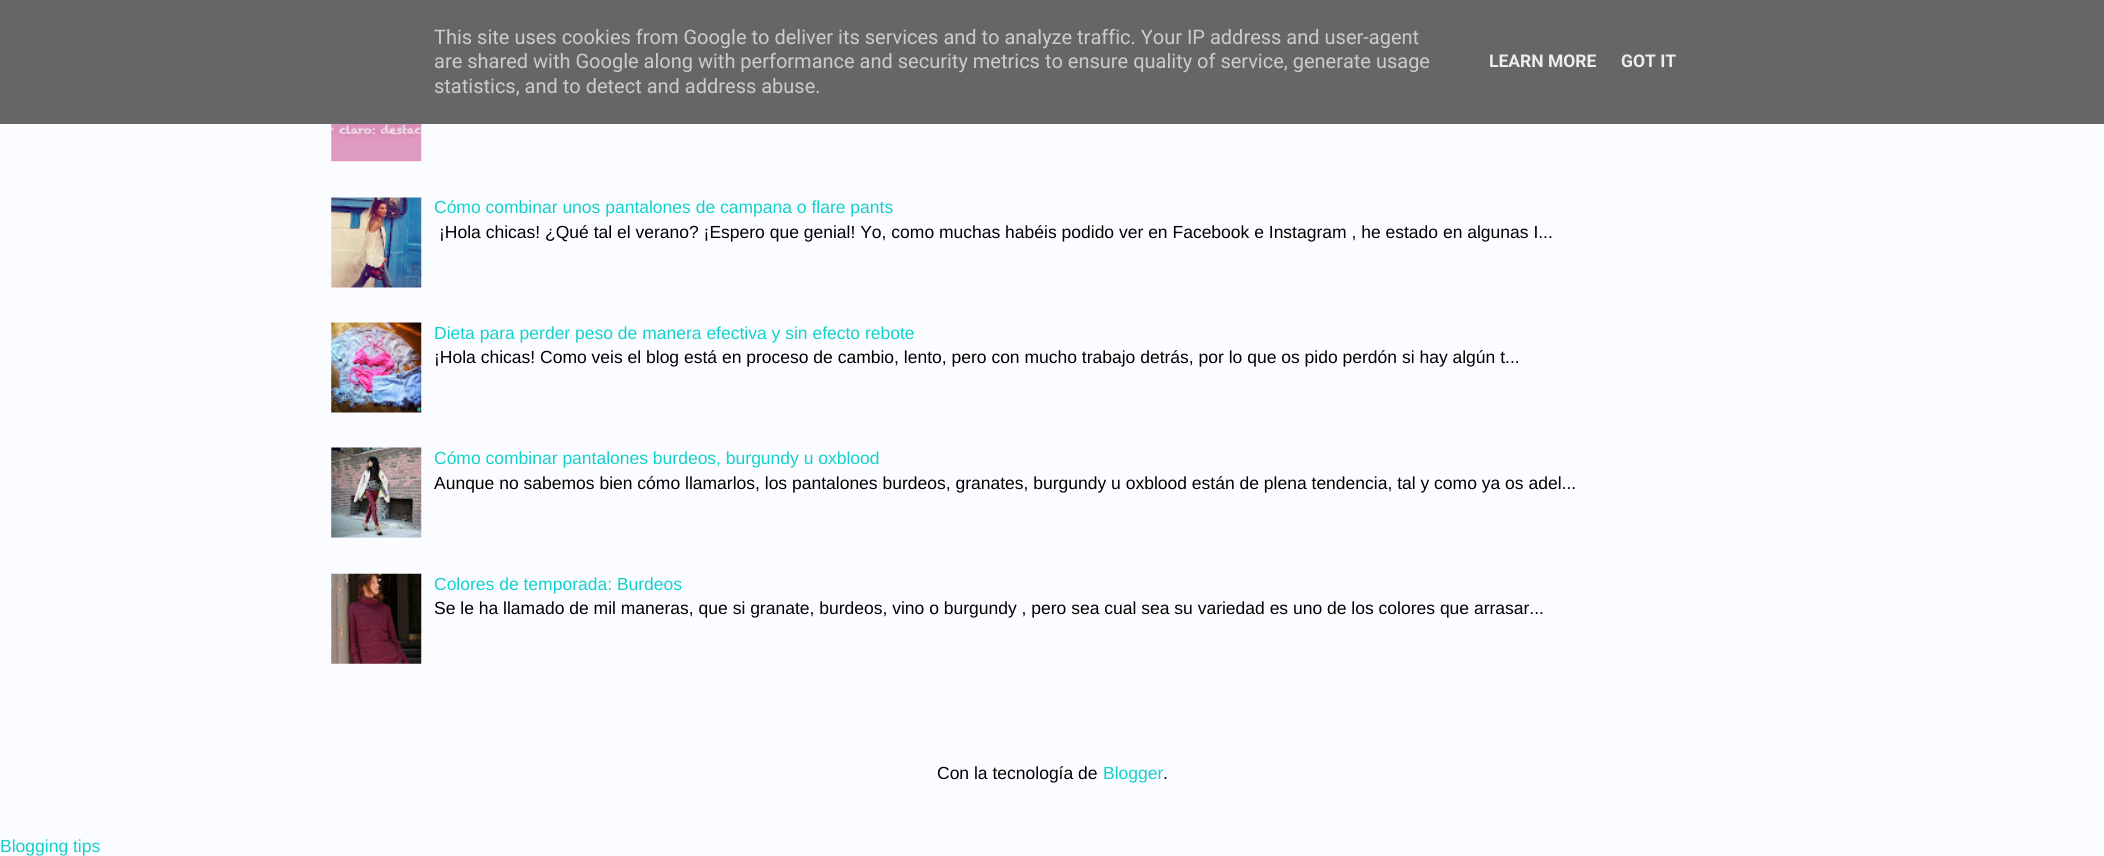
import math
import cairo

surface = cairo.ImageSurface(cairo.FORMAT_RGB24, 2104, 856)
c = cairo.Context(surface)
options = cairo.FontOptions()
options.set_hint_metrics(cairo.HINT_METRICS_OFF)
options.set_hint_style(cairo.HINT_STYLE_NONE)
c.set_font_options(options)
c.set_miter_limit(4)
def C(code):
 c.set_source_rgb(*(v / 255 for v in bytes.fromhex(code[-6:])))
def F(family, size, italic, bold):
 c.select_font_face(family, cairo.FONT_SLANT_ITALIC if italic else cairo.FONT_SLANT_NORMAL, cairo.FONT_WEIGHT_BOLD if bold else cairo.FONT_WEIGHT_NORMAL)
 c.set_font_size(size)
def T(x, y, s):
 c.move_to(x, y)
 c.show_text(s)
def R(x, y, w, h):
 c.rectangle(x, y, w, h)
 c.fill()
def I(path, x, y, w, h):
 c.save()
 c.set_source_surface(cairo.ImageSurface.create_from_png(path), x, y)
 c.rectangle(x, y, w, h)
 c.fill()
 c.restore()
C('fbfcff')
c.paint()
C('666666')
R(0,0,2104,124)
F('Roboto',20,0,0)
C('cccccc')
T(434,44,'This site uses cookies from Google to deliver its services and to analyze traffic. Your IP address and user-agent')
T(434,68,'are shared with Google along with performance and security metrics to ensure quality of service, generate usage')
T(434,93,'statistics, and to detect and address abuse.')
F('Roboto',17.5,0,1)
C('eeeeee')
T(1489,67,'LEARN MORE')
T(1621,67,'GOT IT')
I('1.png',331,124,91,38)
I('2.png',331,197,91,91)
F('Liberation Sans',17.5,0,0)
C('13d0cb')
T(434,213,'Cómo combinar unos pantalones de campana o flare pants')
C('000000')
T(439,238,'¡Hola chicas! ¿Qué tal el verano? ¡Espero que genial! Yo, como muchas habéis podido ver en Facebook e Instagram , he estado en algunas I...')
I('3.png',331,322,91,91)
C('13d0cb')
T(434,339,'Dieta para perder peso de manera efectiva y sin efecto rebote')
C('000000')
T(434,363,'¡Hola chicas! Como veis el blog está en proceso de cambio, lento, pero con mucho trabajo detrás, por lo que os pido perdón si hay algún t...')
I('4.png',331,447,91,91)
C('13d0cb')
T(434,464,'Cómo combinar pantalones burdeos, burgundy u oxblood')
C('000000')
T(434,489,'Aunque no sabemos bien cómo llamarlos, los pantalones burdeos, granates, burgundy u oxblood están de plena tendencia, tal y como ya os adel...')
I('5.png',331,573,91,91)
C('13d0cb')
T(434,590,'Colores de temporada: Burdeos')
C('000000')
T(434,614,'Se le ha llamado de mil maneras, que si granate, burdeos, vino o burgundy , pero sea cual sea su variedad es uno de los colores que arrasar...')
T(937,779,'Con la tecnología de')
C('13d0cb')
T(1103,779,'Blogger')
C('000000')
T(1163,779,'.')
C('13d0cb')
T(0,852,'Blogging tips')
surface.write_to_png('o.png')
